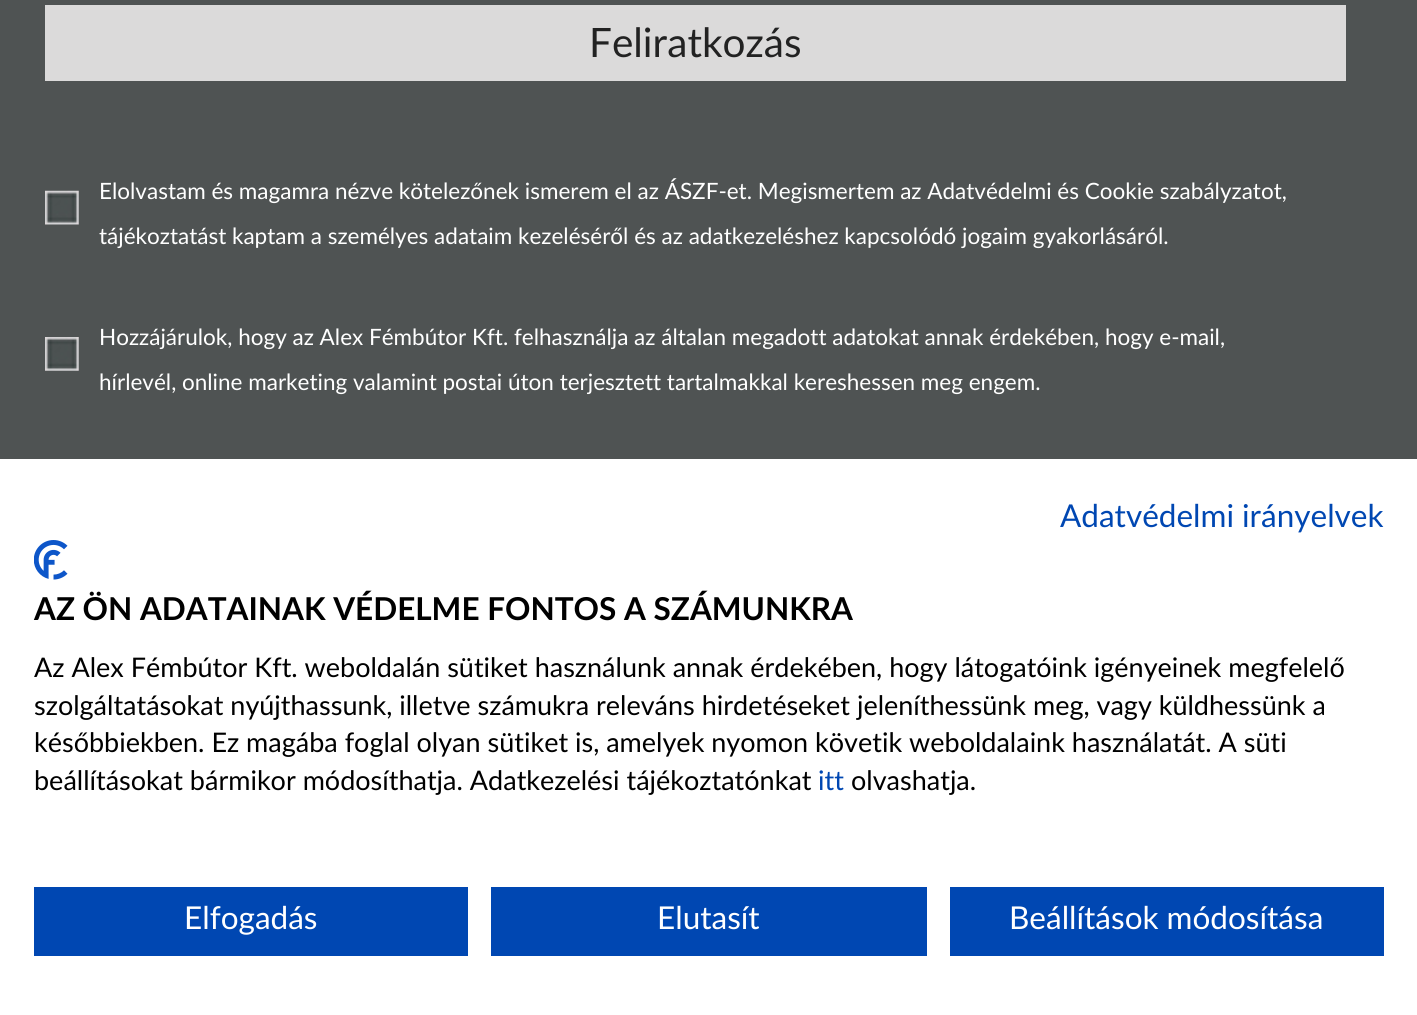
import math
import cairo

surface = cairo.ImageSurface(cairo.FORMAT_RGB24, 1417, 1015)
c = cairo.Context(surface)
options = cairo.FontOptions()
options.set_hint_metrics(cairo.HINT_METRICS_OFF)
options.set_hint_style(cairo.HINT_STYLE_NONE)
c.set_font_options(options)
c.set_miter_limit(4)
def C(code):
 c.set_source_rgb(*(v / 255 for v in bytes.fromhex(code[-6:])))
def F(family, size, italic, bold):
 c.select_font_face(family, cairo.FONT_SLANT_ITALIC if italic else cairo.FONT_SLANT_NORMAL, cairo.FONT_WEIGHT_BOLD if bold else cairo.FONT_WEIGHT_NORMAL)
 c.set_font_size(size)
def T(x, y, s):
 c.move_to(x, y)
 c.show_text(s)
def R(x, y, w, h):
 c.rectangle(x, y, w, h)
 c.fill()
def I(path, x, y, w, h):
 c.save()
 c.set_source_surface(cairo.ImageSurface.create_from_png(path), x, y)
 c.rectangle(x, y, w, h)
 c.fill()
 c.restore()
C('4f5353')
c.paint()
C('dbdada')
R(45,5,1301,76)
F('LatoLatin',40.5,0,0)
C('222222')
T(589,57,'Feliratkozás')
I('1.png',45,190,34,35)
F('LatoLatin',22.5,0,0)
C('ffffff')
T(99,199,'Elolvastam és magamra nézve kötelezőnek ismerem el az ÁSZF-et. Megismertem az Adatvédelmi és Cookie szabályzatot,')
T(99,244,'tájékoztatást kaptam a személyes adataim kezeléséről és az adatkezeléshez kapcsolódó jogaim gyakorlásáról.')
I('2.png',45,337,34,34)
T(99,345,'Hozzájárulok, hogy az Alex Fémbútor Kft. felhasználja az általan megadott adatokat annak érdekében, hogy e-mail,')
T(99,390,'hírlevél, online marketing valamint postai úton terjesztett tartalmakkal kereshessen meg engem.')
R(0,459,1417,556)
F('LatoLatin',31.5,0,0)
C('0047b2')
T(1060,527,'Adatvédelmi irányelvek')
I('3.png',34,540,34,40)
F('LatoLatin',31.5,0,1)
C('000000')
T(34,620,'AZ ÖN ADATAINAK VÉDELME FONTOS A SZÁMUNKRA')
F('LatoLatin',27,0,0)
T(34,677,'Az Alex Fémbútor Kft. weboldalán sütiket használunk annak érdekében, hogy látogatóink igényeinek megfelelő')
T(34,715,'szolgáltatásokat nyújthassunk, illetve számukra releváns hirdetéseket jeleníthessünk meg, vagy küldhessünk a')
T(34,752,'későbbiekben. Ez magába foglal olyan sütiket is, amelyek nyomon követik weboldalaink használatát. A süti')
T(34,790,'beállításokat bármikor módosíthatja. Adatkezelési tájékoztatónkat')
C('0047b2')
T(818,790,'itt')
C('000000')
T(851,790,'olvashatja.')
C('0047b2')
R(34,887,434,69)
F('LatoLatin',31.5,0,0)
C('ffffff')
T(184,929,'Elfogadás')
C('0047b2')
R(491,887,436,69)
C('ffffff')
T(657,929,'Elutasít')
C('0047b2')
R(950,887,434,69)
C('ffffff')
T(1009,929,'Beállítások módosítása')
surface.write_to_png('o.png')
